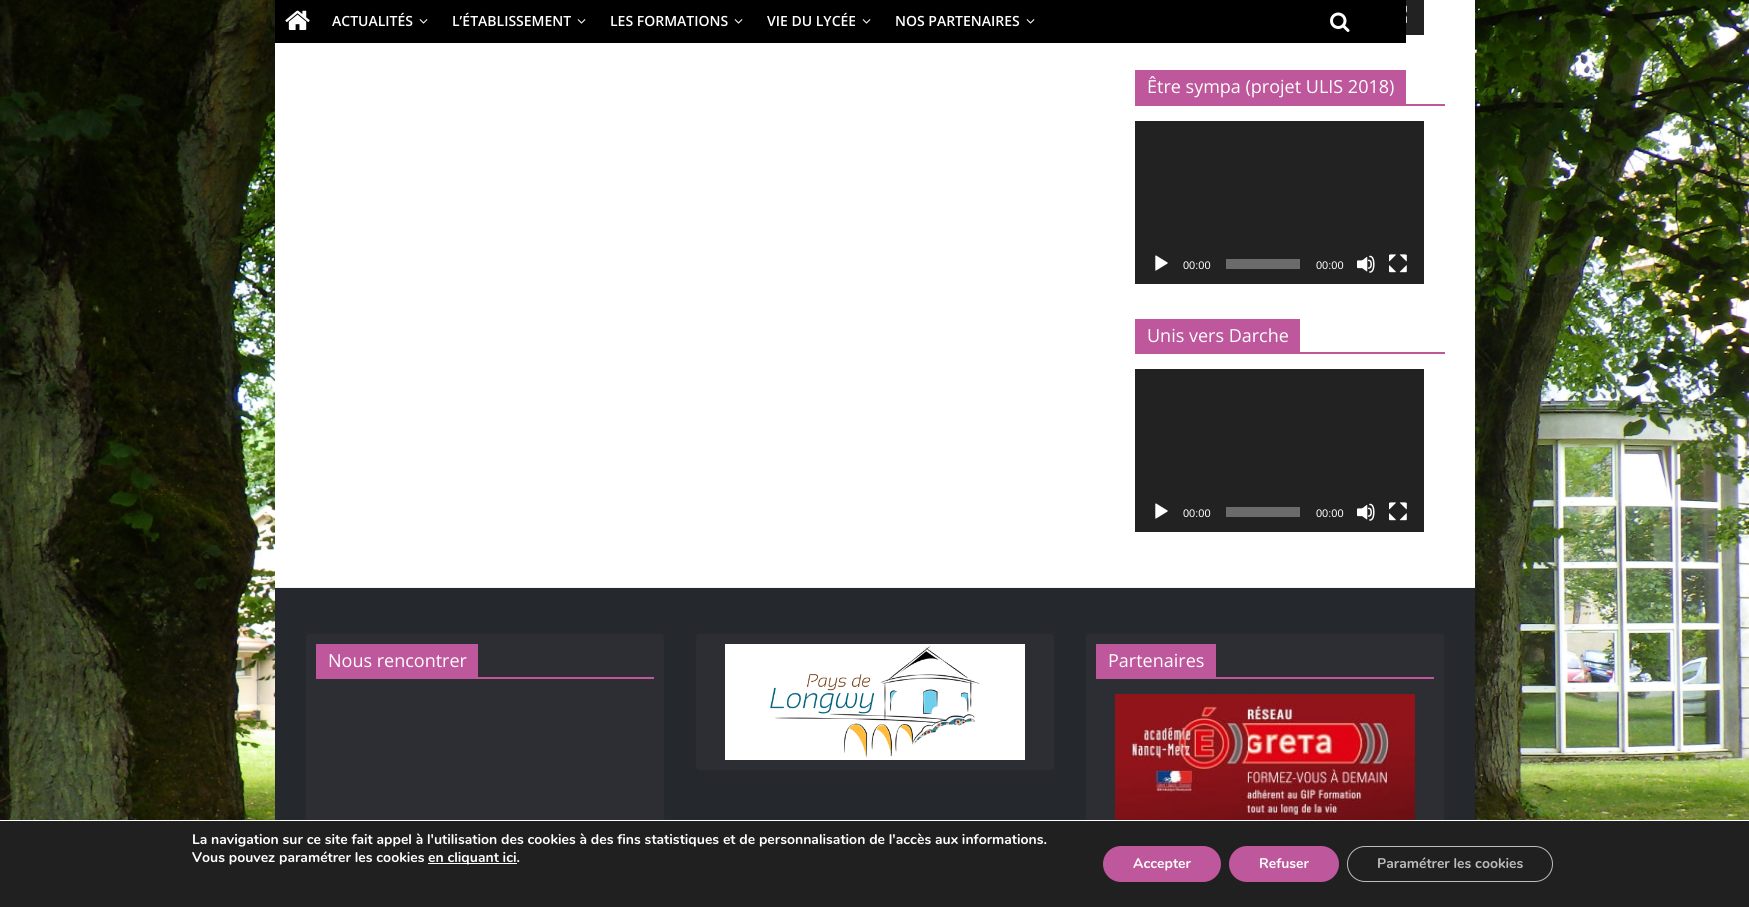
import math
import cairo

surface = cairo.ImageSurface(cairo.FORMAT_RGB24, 1749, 907)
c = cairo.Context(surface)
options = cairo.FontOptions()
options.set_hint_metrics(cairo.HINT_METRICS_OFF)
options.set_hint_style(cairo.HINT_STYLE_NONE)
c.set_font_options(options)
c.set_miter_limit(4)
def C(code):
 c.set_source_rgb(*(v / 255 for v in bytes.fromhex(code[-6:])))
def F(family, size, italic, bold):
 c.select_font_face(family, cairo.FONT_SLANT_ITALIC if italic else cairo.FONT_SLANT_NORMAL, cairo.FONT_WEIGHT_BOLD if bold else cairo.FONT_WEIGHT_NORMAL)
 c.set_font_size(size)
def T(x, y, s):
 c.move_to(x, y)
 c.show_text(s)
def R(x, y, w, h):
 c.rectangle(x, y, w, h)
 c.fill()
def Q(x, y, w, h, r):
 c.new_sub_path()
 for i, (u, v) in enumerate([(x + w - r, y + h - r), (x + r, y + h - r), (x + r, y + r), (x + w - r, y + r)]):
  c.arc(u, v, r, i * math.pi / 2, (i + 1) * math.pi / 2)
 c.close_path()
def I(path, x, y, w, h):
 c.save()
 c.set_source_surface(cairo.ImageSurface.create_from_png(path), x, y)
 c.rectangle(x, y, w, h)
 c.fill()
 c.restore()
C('ffffff')
c.paint()
I('1.png',0,0,1749,820)
C('ffffff')
R(275,0,1200,587)
C('000000')
R(275,0,1131,43)
I('2.png',285,10,25,20)
F('Open Sans SemiBold',14,0,0)
C('ffffff')
T(332,26,'ACTUALITÉS')
I('3.png',419,19,9,5)
T(452,26,'L’ÉTABLISSEMENT')
I('3.png',577,19,9,5)
T(610,26,'LES FORMATIONS')
I('3.png',734,19,9,5)
T(767,26,'VIE DU LYCÉE')
I('3.png',862,19,9,5)
T(895,26,'NOS PARTENAIRES')
I('3.png',1026,19,9,5)
I('4.png',1330,12,20,20)
C('222222')
R(1406,0,18,35)
I('5.png',1406,5,1,19)
C('be579c')
R(1135,104,310,2)
R(1135,70,271,34)
F('Open Sans',18,0,0)
C('ffffff')
T(1147,93,'Être sympa (projet ULIS 2018)')
C('222222')
R(1135,121,289,163)
I('6.png',1155,255,13,16)
F('Liberation Sans',11,0,0)
C('ffffff')
T(1183,269,'00:00')
C('6b6b6b')
R(1226,259,74,10)
C('ffffff')
T(1316,269,'00:00')
I('7.png',1357,255,18,18)
I('8.png',1389,254,18,19)
C('be579c')
R(1135,352,310,2)
R(1135,319,165,33)
F('Open Sans',18,0,0)
C('ffffff')
T(1147,342,'Unis vers Darche')
C('222222')
R(1135,369,289,163)
I('6.png',1155,503,13,16)
F('Liberation Sans',11,0,0)
C('ffffff')
T(1183,517,'00:00')
C('6b6b6b')
R(1226,507,74,10)
C('ffffff')
T(1316,517,'00:00')
I('7.png',1357,503,18,18)
I('8.png',1389,502,18,19)
C('25282d')
R(275,588,1200,232)
C('f2f2f2')
R(275,587,1200,1)
C('2c2e34')
Q(305,633,360,227,5)
c.fill()
Q(305.5,633.5,359,226,4.5)
c.set_source_rgba(0,0,0,0.1)
c.set_line_width(1)
c.stroke()
C('be579c')
R(316,677,338,2)
R(316,644,162,33)
F('Open Sans',18,0,0)
C('ffffff')
T(328,667,'Nous rencontrer')
C('2c2e34')
Q(695,633,360,138,5)
c.fill()
Q(695.5,633.5,359,137,4.5)
c.set_source_rgba(0,0,0,0.1)
c.stroke()
I('9.png',725,644,300,116)
C('2c2e34')
Q(1085,633,360,207,5)
c.fill()
Q(1085.5,633.5,359,206,4.5)
c.set_source_rgba(0,0,0,0.1)
c.stroke()
C('be579c')
R(1096,677,338,2)
R(1096,644,120,33)
C('ffffff')
T(1108,667,'Partenaires')
I('10.png',1115,694,300,126)
C('202020')
R(0,821,1749,86)
C('ffffff')
R(305,820,1140,1)
F('Nunito',14,0,1)
T(192,844,'La navigation sur ce site fait appel à l\'utilisation des cookies à des fins statistiques et de personnalisation de l\'accès aux informations.')
T(192,862,'Vous pouvez paramétrer les cookies')
R(428,863,89,1)
T(428,862,'en cliquant ici.')
C('be579c')
Q(1103,846,118,36,18)
c.fill()
C('ffffff')
T(1133,868,'Accepter')
C('be579c')
Q(1229,846,110,36,18)
c.fill()
C('ffffff')
T(1259,868,'Refuser')
Q(1347.5,846.5,205,35,17.5)
C('bcbcbc')
c.stroke()
T(1377,868,'Paramétrer les cookies')
surface.write_to_png('o.png')
